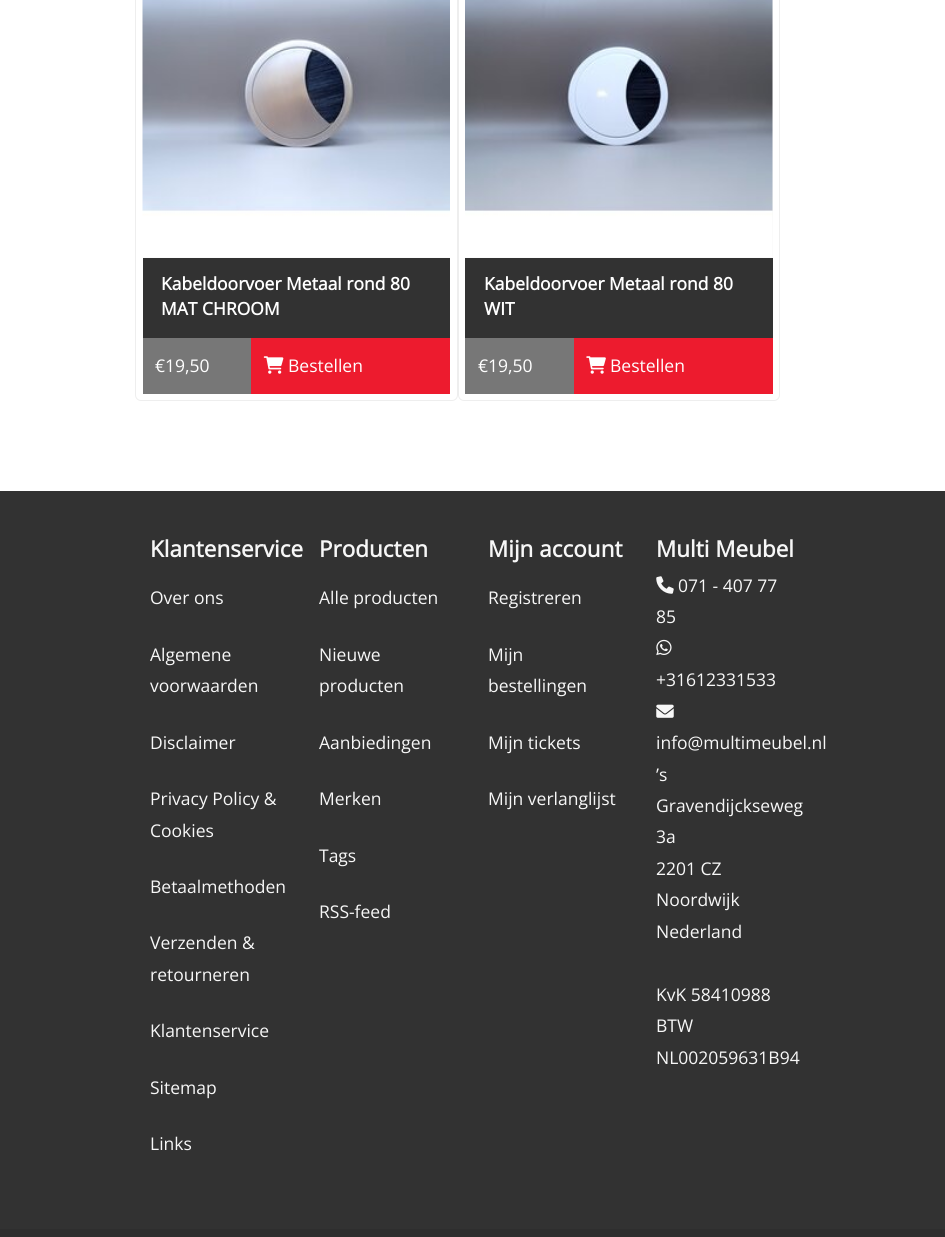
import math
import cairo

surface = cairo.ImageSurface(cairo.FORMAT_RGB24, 945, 1237)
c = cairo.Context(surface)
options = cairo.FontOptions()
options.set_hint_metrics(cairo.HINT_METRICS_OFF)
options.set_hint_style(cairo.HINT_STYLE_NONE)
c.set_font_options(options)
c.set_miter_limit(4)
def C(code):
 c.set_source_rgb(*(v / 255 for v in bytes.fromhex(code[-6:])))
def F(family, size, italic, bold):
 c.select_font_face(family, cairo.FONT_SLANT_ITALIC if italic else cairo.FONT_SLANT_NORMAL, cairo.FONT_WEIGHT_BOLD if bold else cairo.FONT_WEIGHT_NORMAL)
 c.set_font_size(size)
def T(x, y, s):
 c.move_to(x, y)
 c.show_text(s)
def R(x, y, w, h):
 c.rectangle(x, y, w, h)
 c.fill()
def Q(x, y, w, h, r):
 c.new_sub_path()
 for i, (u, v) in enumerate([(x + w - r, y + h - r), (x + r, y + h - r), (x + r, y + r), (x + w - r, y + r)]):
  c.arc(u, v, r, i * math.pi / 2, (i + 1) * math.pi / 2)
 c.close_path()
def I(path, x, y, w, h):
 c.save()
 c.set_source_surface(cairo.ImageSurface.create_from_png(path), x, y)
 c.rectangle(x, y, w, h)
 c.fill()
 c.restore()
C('ffffff')
c.paint()
Q(135.5,-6.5,322,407,5.5)
C('eeeeee')
c.set_line_width(1)
c.stroke()
C('f7f7f7')
R(143,257,307,1)
I('1.png',142,0,308,258)
C('323232')
R(143,258,307,80)
F('Open Sans',17.5,0,1)
C('ffffff')
T(161,290,'Kabeldoorvoer Metaal rond 80')
T(161,315,'MAT CHROOM')
C('777777')
R(143,338,108,56)
F('Open Sans',17.5,0,0)
C('ffffff')
T(155,372,'€19,50')
C('ed1b2e')
R(251,338,199,56)
I('2.png',263,356,21,18)
C('ffffff')
T(288,372,'Bestellen')
Q(458.5,-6.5,321,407,5.5)
C('eeeeee')
c.stroke()
C('f7f7f7')
R(465,0,308,258)
I('3.png',465,0,308,258)
C('323232')
R(465,258,308,80)
F('Open Sans',17.5,0,1)
C('ffffff')
T(484,290,'Kabeldoorvoer Metaal rond 80')
T(484,315,'WIT')
C('777777')
R(465,338,109,56)
F('Open Sans',17.5,0,0)
C('ffffff')
T(478,372,'€19,50')
C('ed1b2e')
R(574,338,199,56)
I('4.png',586,356,20,18)
C('ffffff')
T(610,372,'Bestellen')
C('323232')
R(0,491,945,738)
F('Open Sans',22.5,0,1)
C('f7f7f7')
T(150,557,'Klantenservice')
F('Open Sans',17.5,0,0)
T(150,604,'Over ons')
T(150,661,'Algemene')
T(150,692,'voorwaarden')
T(150,749,'Disclaimer')
T(150,805,'Privacy Policy &')
T(150,837,'Cookies')
T(150,893,'Betaalmethoden')
T(150,949,'Verzenden &')
T(150,981,'retourneren')
T(150,1037,'Klantenservice')
T(150,1094,'Sitemap')
T(150,1150,'Links')
F('Open Sans',22.5,0,1)
T(319,557,'Producten')
F('Open Sans',17.5,0,0)
T(319,604,'Alle producten')
T(319,661,'Nieuwe')
T(319,692,'producten')
T(319,749,'Aanbiedingen')
T(319,805,'Merken')
T(319,862,'Tags')
T(319,918,'RSS-feed')
F('Open Sans',22.5,0,1)
T(488,557,'Mijn account')
F('Open Sans',17.5,0,0)
T(488,604,'Registreren')
T(488,661,'Mijn')
T(488,692,'bestellingen')
T(488,749,'Mijn tickets')
T(488,805,'Mijn verlanglijst')
F('Open Sans',22.5,0,1)
T(656,557,'Multi Meubel')
I('5.png',656,576,18,18)
F('Open Sans',17.5,0,0)
T(678,592,'071 - 407 77')
T(656,623,'85')
I('6.png',656,639,16,17)
T(656,686,'+31612331533')
I('7.png',656,704,18,14)
T(656,749,'info@multimeubel.nl')
T(656,781,'’s')
T(656,812,'Gravendijckseweg')
T(656,843,'3a')
T(656,875,'2201 CZ')
T(656,906,'Noordwijk')
T(656,938,'Nederland')
T(656,1001,'KvK 58410988')
T(656,1032,'BTW')
T(656,1064,'NL002059631B94')
C('2e2e2e')
R(0,1229,945,8)
surface.write_to_png('o.png')
